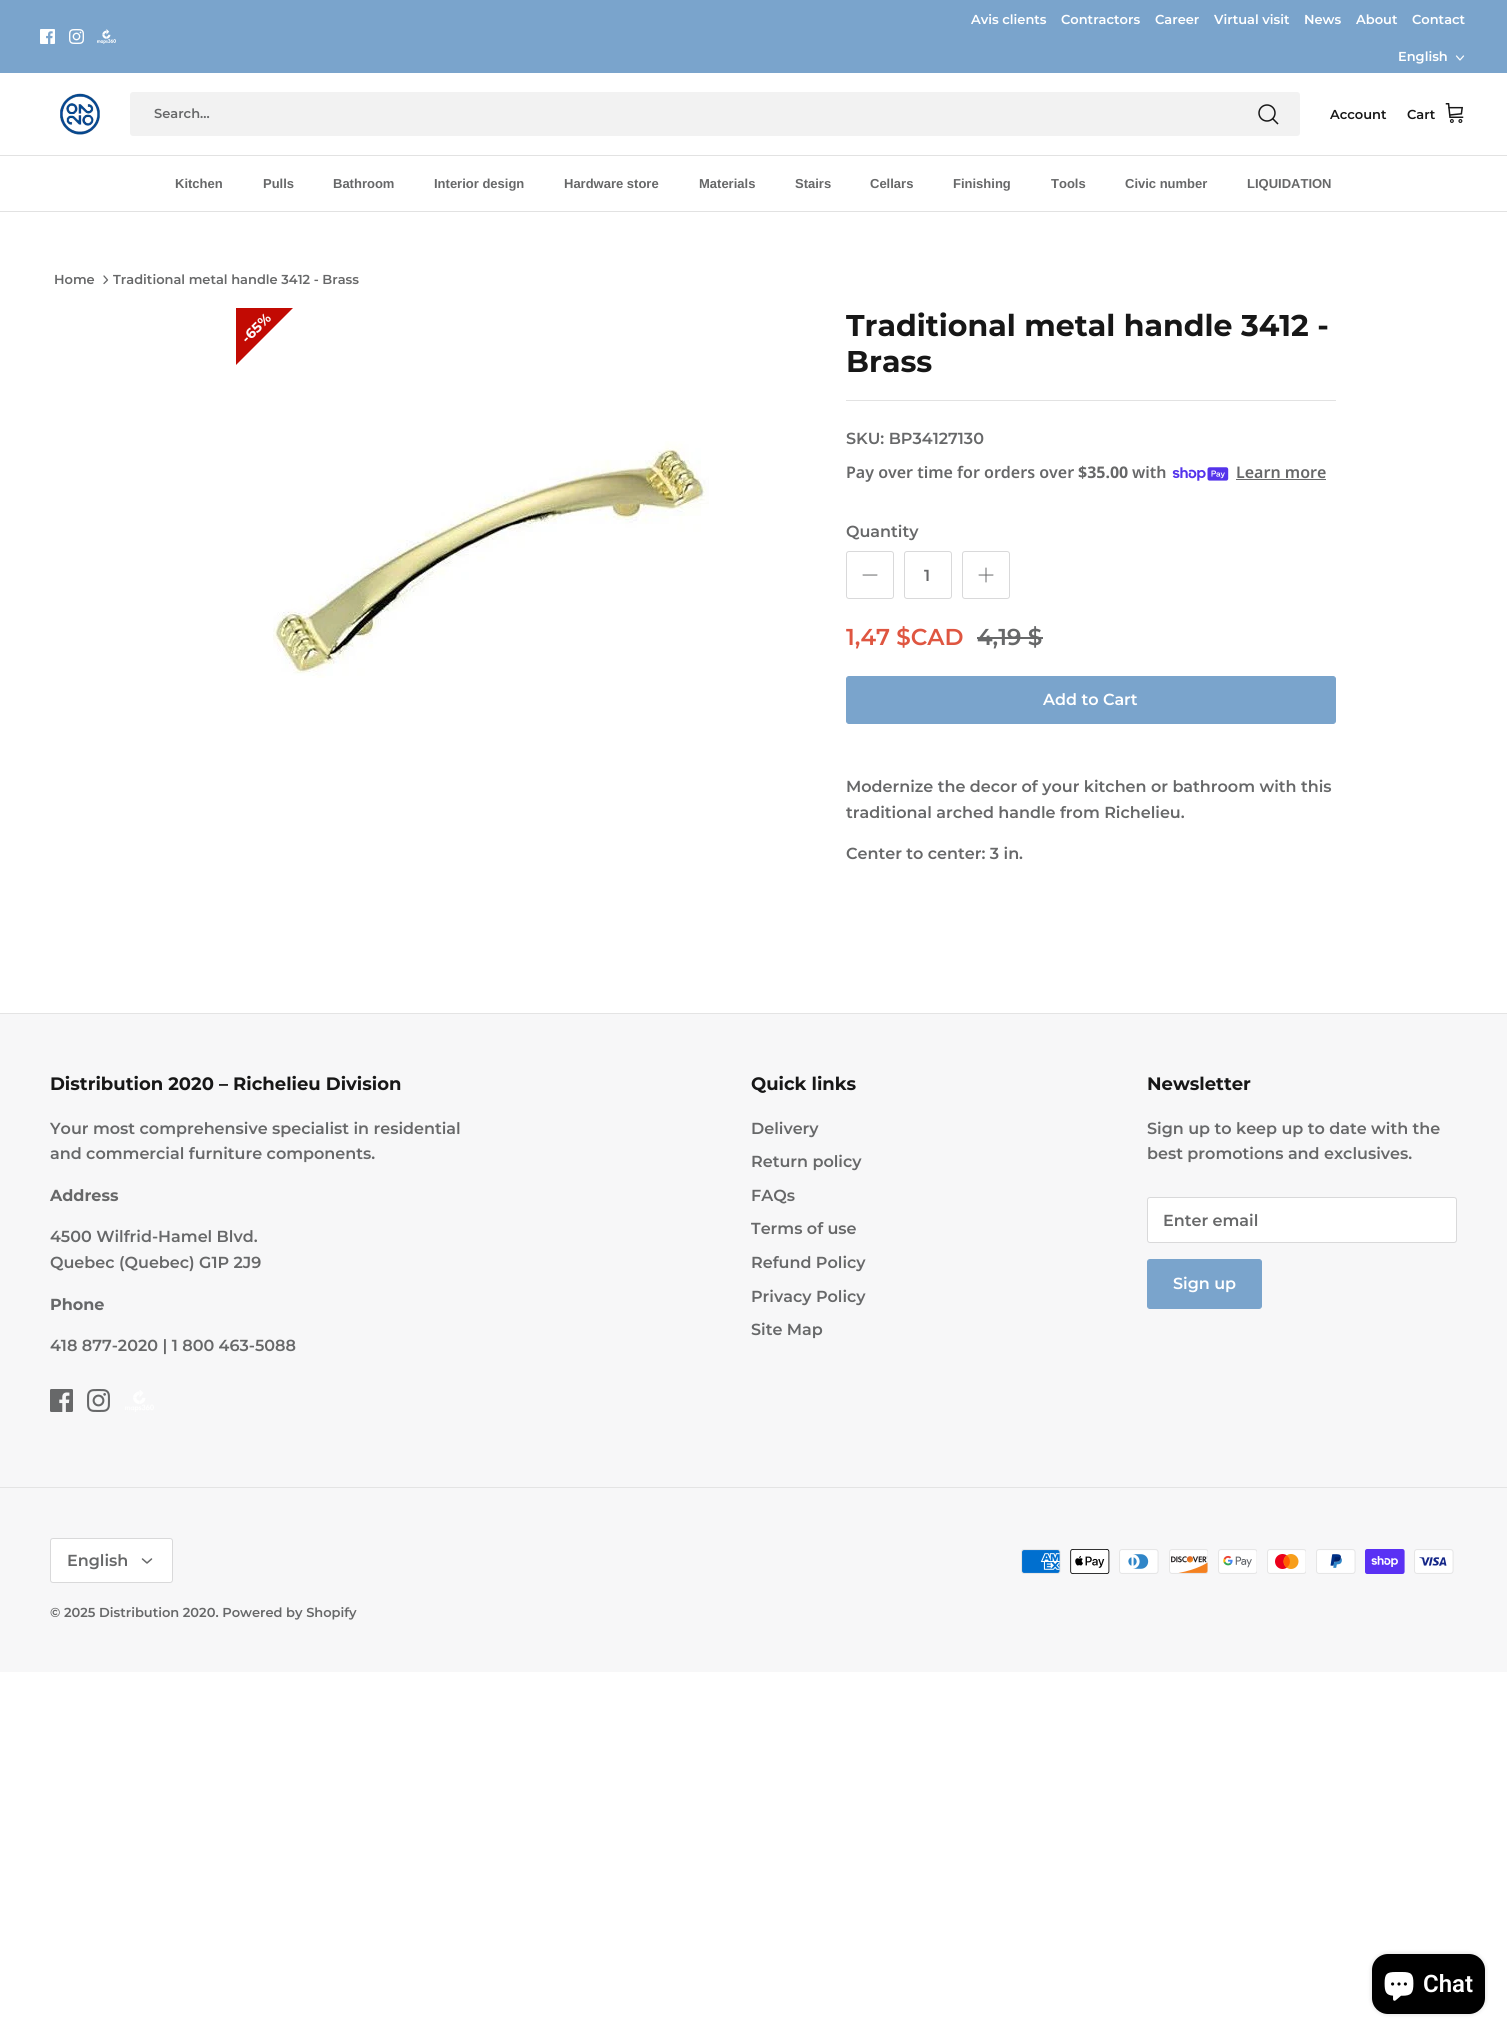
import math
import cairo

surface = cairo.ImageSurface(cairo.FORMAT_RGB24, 1507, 2035)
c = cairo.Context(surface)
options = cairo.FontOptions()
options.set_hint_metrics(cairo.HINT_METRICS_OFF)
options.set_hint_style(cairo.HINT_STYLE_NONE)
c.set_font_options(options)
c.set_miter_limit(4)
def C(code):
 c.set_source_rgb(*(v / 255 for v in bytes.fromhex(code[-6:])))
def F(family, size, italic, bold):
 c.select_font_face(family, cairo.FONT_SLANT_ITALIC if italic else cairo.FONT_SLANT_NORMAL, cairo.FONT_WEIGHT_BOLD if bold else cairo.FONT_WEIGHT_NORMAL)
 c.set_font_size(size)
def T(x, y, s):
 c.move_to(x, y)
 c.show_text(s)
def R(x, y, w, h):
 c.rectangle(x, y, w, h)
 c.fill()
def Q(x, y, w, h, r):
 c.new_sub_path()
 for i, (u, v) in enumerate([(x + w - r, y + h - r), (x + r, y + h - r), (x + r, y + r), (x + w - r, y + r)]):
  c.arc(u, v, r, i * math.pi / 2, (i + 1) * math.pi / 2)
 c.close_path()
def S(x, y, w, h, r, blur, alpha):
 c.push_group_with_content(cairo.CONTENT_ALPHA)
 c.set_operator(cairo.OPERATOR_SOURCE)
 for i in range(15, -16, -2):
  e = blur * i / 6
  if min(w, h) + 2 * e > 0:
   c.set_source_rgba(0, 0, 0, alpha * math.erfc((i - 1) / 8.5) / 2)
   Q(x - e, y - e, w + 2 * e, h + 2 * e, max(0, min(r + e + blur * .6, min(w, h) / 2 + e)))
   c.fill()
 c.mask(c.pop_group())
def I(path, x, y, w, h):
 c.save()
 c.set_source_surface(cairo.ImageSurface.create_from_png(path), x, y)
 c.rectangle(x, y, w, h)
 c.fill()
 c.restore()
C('ffffff')
c.paint()
C('7aa4cc')
R(0,0,1507,73)
I('1.png',40,29,15,15)
I('2.png',69,29,15,15)
I('3.png',97,29,19,15)
F('Montserrat SemiBold',13,0,0)
C('ffffff')
T(971,24,'Avis clients')
T(1061,24,'Contractors')
T(1155,24,'Career')
T(1214,24,'Virtual visit')
T(1304,24,'News')
T(1356,24,'About')
T(1412,24,'Contact')
T(1398,61,'English')
c.new_path()
c.move_to(1456.5,56)
c.line_to(1460,60)
c.line_to(1463.5,56)
c.set_line_width(1.2)
c.set_line_cap(cairo.LINE_CAP_ROUND)
c.set_line_join(cairo.LINE_JOIN_ROUND)
c.stroke()
C('e2e2e2')
R(0,155,1507,1)
I('4.png',60,93,40,42)
C('f2f2f2')
Q(130,92,1170,44,3)
c.fill()
C('676869')
T(154,118,'Search...')
c.new_path()
c.arc(1267,113,8,0,2 * math.pi)
C('171717')
c.set_line_width(1.5)
c.set_line_cap(cairo.LINE_CAP_BUTT)
c.set_line_join(cairo.LINE_JOIN_MITER)
c.stroke()
c.new_path()
c.move_to(1273,119)
c.line_to(1277.5,123.5)
c.set_line_cap(cairo.LINE_CAP_SQUARE)
c.stroke()
T(1330,119,'Account')
T(1407,119,'Cart')
I('5.png',1445,103,19,20)
C('e2e2e2')
R(0,211,1507,1)
F('Arimo',13,0,1)
C('676869')
T(175,188,'Kitchen')
T(263,188,'Pulls')
T(333,188,'Bathroom')
T(434,188,'Interior design')
T(564,188,'Hardware store')
T(699,188,'Materials')
T(795,188,'Stairs')
T(870,188,'Cellars')
T(953,188,'Finishing')
T(1051,188,'Tools')
T(1125,188,'Civic number')
T(1247,188,'LIQUIDATION')
F('Montserrat SemiBold',13,0,0)
T(54,284,'Home')
c.new_path()
c.move_to(104,283.5)
c.line_to(107.5,280)
c.line_to(104,276)
c.set_line_width(1.3)
c.set_line_cap(cairo.LINE_CAP_ROUND)
c.set_line_join(cairo.LINE_JOIN_ROUND)
c.stroke()
T(113,284,'Traditional metal handle 3412 - Brass')
C('c20a03')
c.new_path()
c.move_to(293,308)
c.line_to(236,365)
c.line_to(236,308)
c.close_path()
c.fill()
F('Montserrat',14,0,1)
C('faf9f9')
c.save()
c.translate(251,340)
c.rotate(-45 * math.pi / 180)
T(0,0,'65%')
c.restore()
c.save()
c.translate(247,344)
c.rotate(-45 * math.pi / 180)
T(0,0,'-')
c.restore()
I('6.png',273,441,436,237)
F('Montserrat',30,0,1)
C('171717')
T(846,336,'Traditional metal handle 3412 -')
T(846,372,'Brass')
C('e2e2e2')
R(846,400,490,1)
F('Montserrat SemiBold',16,0,0)
C('676869')
T(846,444,'SKU: BP34127130')
F('Noto Sans SemiBold',16,0,0)
T(846,478,'Pay over time for orders over')
F('Noto Sans',16,0,1)
T(1078,478,'$35.00')
F('Noto Sans SemiBold',16,0,0)
T(1132,478,'with')
I('7.png',1172,467,57,14)
T(1236,478,'Learn more')
R(1236,479,90,1)
F('Montserrat SemiBold',16,0,0)
T(846,537,'Quantity')
Q(846.5,551.5,47,47,2.5)
C('d9d9da')
c.set_line_width(1)
c.set_line_cap(cairo.LINE_CAP_BUTT)
c.set_line_join(cairo.LINE_JOIN_MITER)
c.stroke()
c.new_path()
c.move_to(863,575)
c.line_to(877,575)
C('676869')
c.set_line_cap(cairo.LINE_CAP_ROUND)
c.set_line_join(cairo.LINE_JOIN_ROUND)
c.stroke()
Q(904.5,551.5,47,47,2.5)
C('d9d9da')
c.set_line_cap(cairo.LINE_CAP_BUTT)
c.set_line_join(cairo.LINE_JOIN_MITER)
c.stroke()
C('676869')
T(924,581,'1')
Q(962.5,551.5,47,47,2.5)
C('d9d9da')
c.stroke()
c.new_path()
c.move_to(986,568)
c.line_to(986,582)
c.move_to(979,575)
c.line_to(993,575)
C('676869')
c.set_line_cap(cairo.LINE_CAP_ROUND)
c.set_line_join(cairo.LINE_JOIN_ROUND)
c.stroke()
F('Montserrat SemiBold',23,0,0)
C('df5641')
T(846,645,'1,47 $CAD')
C('676869')
T(977,645,'4,19 $')
R(977,637,66,2)
C('7aa4cc')
Q(846.5,676.5,489,47,2.5)
c.fill_preserve()
c.set_line_cap(cairo.LINE_CAP_BUTT)
c.set_line_join(cairo.LINE_JOIN_MITER)
c.stroke()
F('Montserrat SemiBold',16,0,0)
C('ffffff')
T(1043,705,'Add to Cart')
C('676869')
T(846,792,'Modernize the decor of your kitchen or bathroom with this')
T(846,818,'traditional arched handle from Richelieu.')
T(846,859,'Center to center: 3 in.')
C('f7f7f8')
R(0,1014,1507,658)
C('e4e4e4')
R(0,1013,1507,1)
F('Montserrat',18,0,1)
C('171717')
T(50,1090,'Distribution 2020 – Richelieu Division')
F('Montserrat SemiBold',16,0,0)
C('676869')
T(50,1134,'Your most comprehensive specialist in residential')
T(50,1159,'and commercial furniture components.')
F('Montserrat',16,0,1)
T(50,1201,'Address')
F('Montserrat SemiBold',16,0,0)
T(50,1242,'4500 Wilfrid-Hamel Blvd.')
T(50,1268,'Quebec (Quebec) G1P 2J9')
F('Montserrat',16,0,1)
T(50,1310,'Phone')
F('Montserrat SemiBold',16,0,0)
T(50,1351,'418 877-2020 | 1 800 463-5088')
I('8.png',50,1389,23,23)
I('9.png',87,1389,23,23)
I('10.png',125,1390,29,22)
F('Montserrat',18,0,1)
C('171717')
T(751,1090,'Quick links')
F('Montserrat SemiBold',16,0,0)
C('676869')
T(751,1134,'Delivery')
T(751,1167,'Return policy')
T(751,1201,'FAQs')
T(751,1234,'Terms of use')
T(751,1268,'Refund Policy')
T(751,1302,'Privacy Policy')
T(751,1335,'Site Map')
F('Montserrat',18,0,1)
C('171717')
T(1147,1090,'Newsletter')
F('Montserrat SemiBold',16,0,0)
C('676869')
T(1147,1134,'Sign up to keep up to date with the')
T(1147,1159,'best promotions and exclusives.')
C('ffffff')
Q(1147.5,1197.5,309,45,2.5)
c.fill_preserve()
C('d9d9da')
c.stroke()
C('676869')
T(1163,1226,'Enter email')
C('7aa4cc')
Q(1147.5,1259.5,114,49,2.5)
c.fill_preserve()
c.stroke()
C('ffffff')
T(1173,1289,'Sign up')
C('e4e4e4')
R(0,1487,1507,1)
C('ffffff')
Q(50.5,1538.5,122,44,2.5)
c.fill_preserve()
C('d9d9da')
c.stroke()
C('676869')
T(67,1566,'English')
c.new_path()
c.move_to(142.5,1559)
c.line_to(147,1563)
c.line_to(151.5,1559)
c.set_line_width(1.5)
c.set_line_cap(cairo.LINE_CAP_ROUND)
c.set_line_join(cairo.LINE_JOIN_ROUND)
c.stroke()
F('Montserrat SemiBold',13,0,0)
T(50,1617,'© 2025 Distribution 2020. Powered by Shopify')
I('11.png',1021,1549,40,25)
I('12.png',1070,1549,40,25)
I('13.png',1119,1549,40,25)
I('14.png',1169,1549,39,25)
I('15.png',1218,1549,39,25)
I('16.png',1267,1549,39,25)
I('17.png',1316,1549,40,25)
I('18.png',1365,1549,40,25)
I('19.png',1414,1549,40,25)
C('000000')
S(1372,1954,113,60,16,2.5,.15)
C('000000')
Q(1372,1954,113,60,16)
c.fill()
I('20.png',1384,1972,30,29)
F('Roboto SemiBold',24,0,0)
C('ffffff')
T(1423,1992,'Chat')
surface.write_to_png('o.png')
